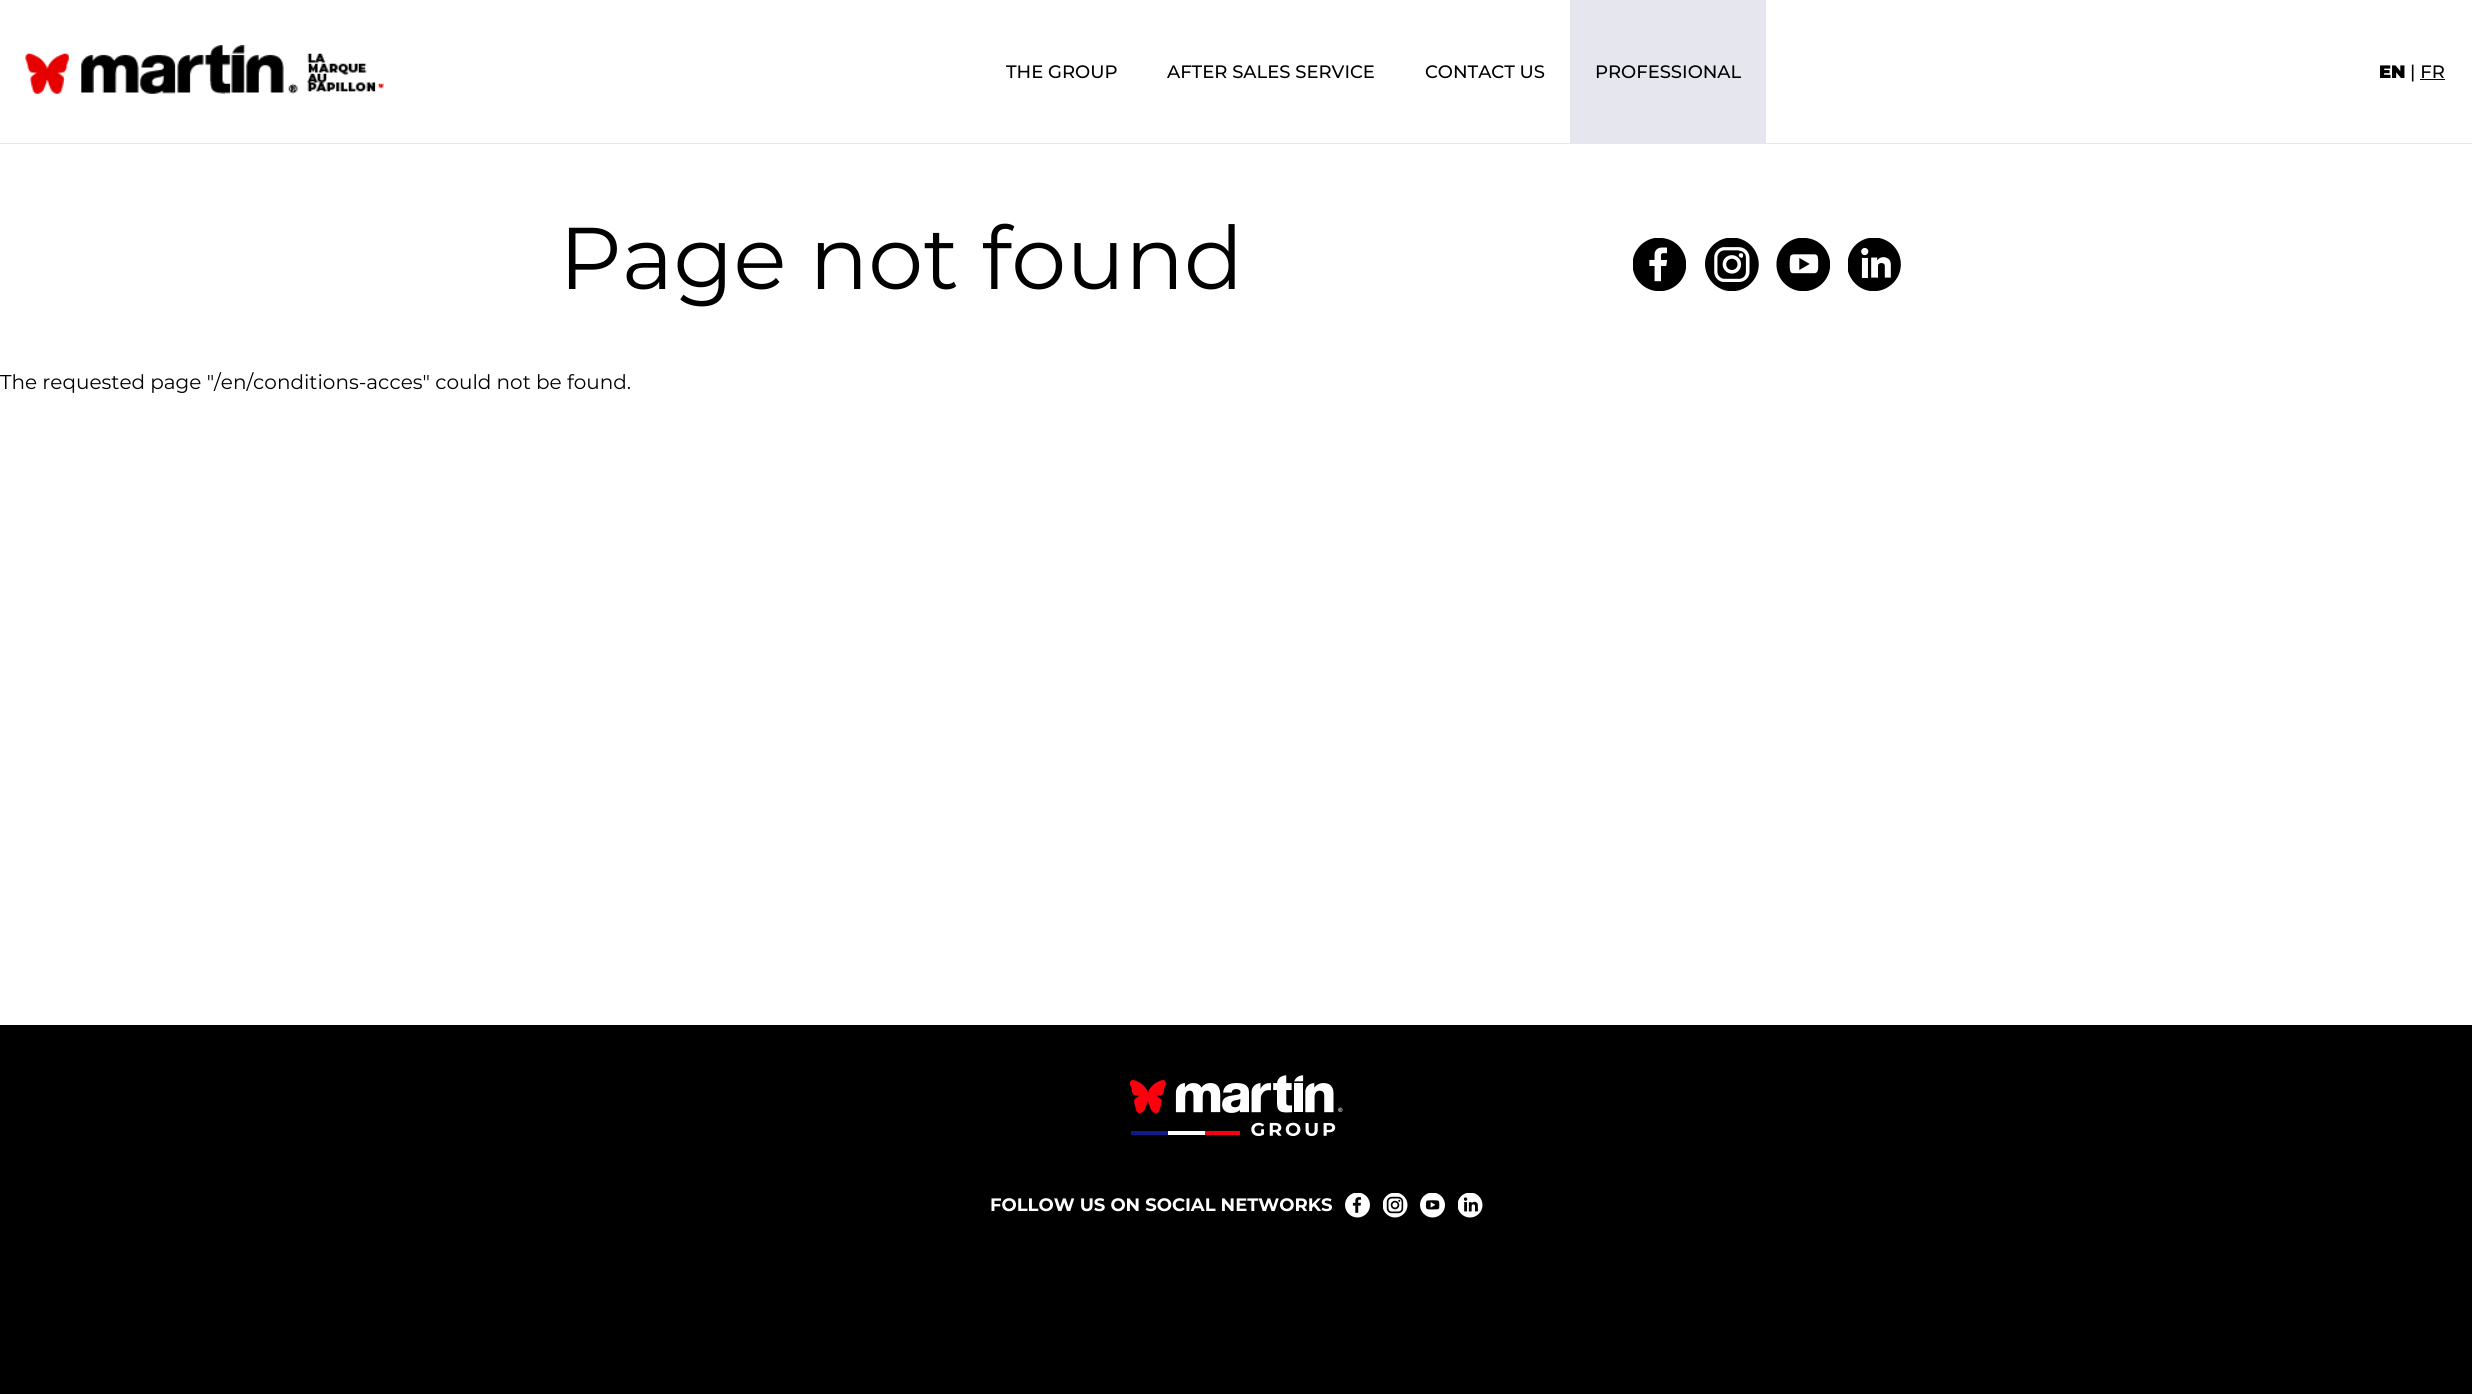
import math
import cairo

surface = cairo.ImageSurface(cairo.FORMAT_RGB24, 2472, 1394)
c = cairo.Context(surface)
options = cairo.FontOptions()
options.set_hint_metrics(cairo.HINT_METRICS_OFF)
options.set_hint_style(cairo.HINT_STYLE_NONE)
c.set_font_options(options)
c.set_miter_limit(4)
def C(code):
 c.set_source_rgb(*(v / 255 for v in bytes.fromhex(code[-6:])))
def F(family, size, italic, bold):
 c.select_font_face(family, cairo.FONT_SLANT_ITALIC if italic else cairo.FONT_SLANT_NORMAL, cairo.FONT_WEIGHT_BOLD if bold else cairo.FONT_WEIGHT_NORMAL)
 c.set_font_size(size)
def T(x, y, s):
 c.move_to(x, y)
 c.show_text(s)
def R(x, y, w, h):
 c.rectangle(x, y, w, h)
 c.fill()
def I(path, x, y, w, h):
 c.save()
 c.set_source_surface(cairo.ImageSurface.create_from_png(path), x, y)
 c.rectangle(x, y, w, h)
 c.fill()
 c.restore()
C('ffffff')
c.paint()
C('e6e6ee')
R(0,143,2472,1)
I('1.png',25,45,359,49)
F('Montserrat Medium',18,0,0)
C('000000')
T(1006,78,'THE GROUP')
T(1167,78,'AFTER SALES SERVICE')
T(1425,78,'CONTACT US')
C('e6e6ee')
R(1570,0,196,143)
C('000000')
T(1595,78,'PROFESSIONAL')
F('Montserrat Black',18,0,0)
T(2379,78,'EN')
F('Montserrat Medium',18,0,0)
T(2410,78,'| FR')
R(2420,79,25,1)
F('Montserrat',87.5,0,0)
T(559,289,'Page not found')
I('2.png',1633,238,53,53)
I('3.png',1705,238,54,53)
I('4.png',1776,238,54,53)
I('5.png',1848,238,53,53)
F('Montserrat',20,0,0)
T(0,389,'The requested page "/en/conditions-acces" could not be found.')
R(0,1025,2472,369)
I('6.png',1130,1075,213,61)
F('Montserrat',18,0,1)
C('ffffff')
T(990,1211,'FOLLOW US ON SOCIAL NETWORKS')
I('7.png',1345,1193,25,25)
I('8.png',1383,1193,25,25)
I('9.png',1420,1193,25,25)
I('10.png',1458,1193,25,25)
surface.write_to_png('o.png')
